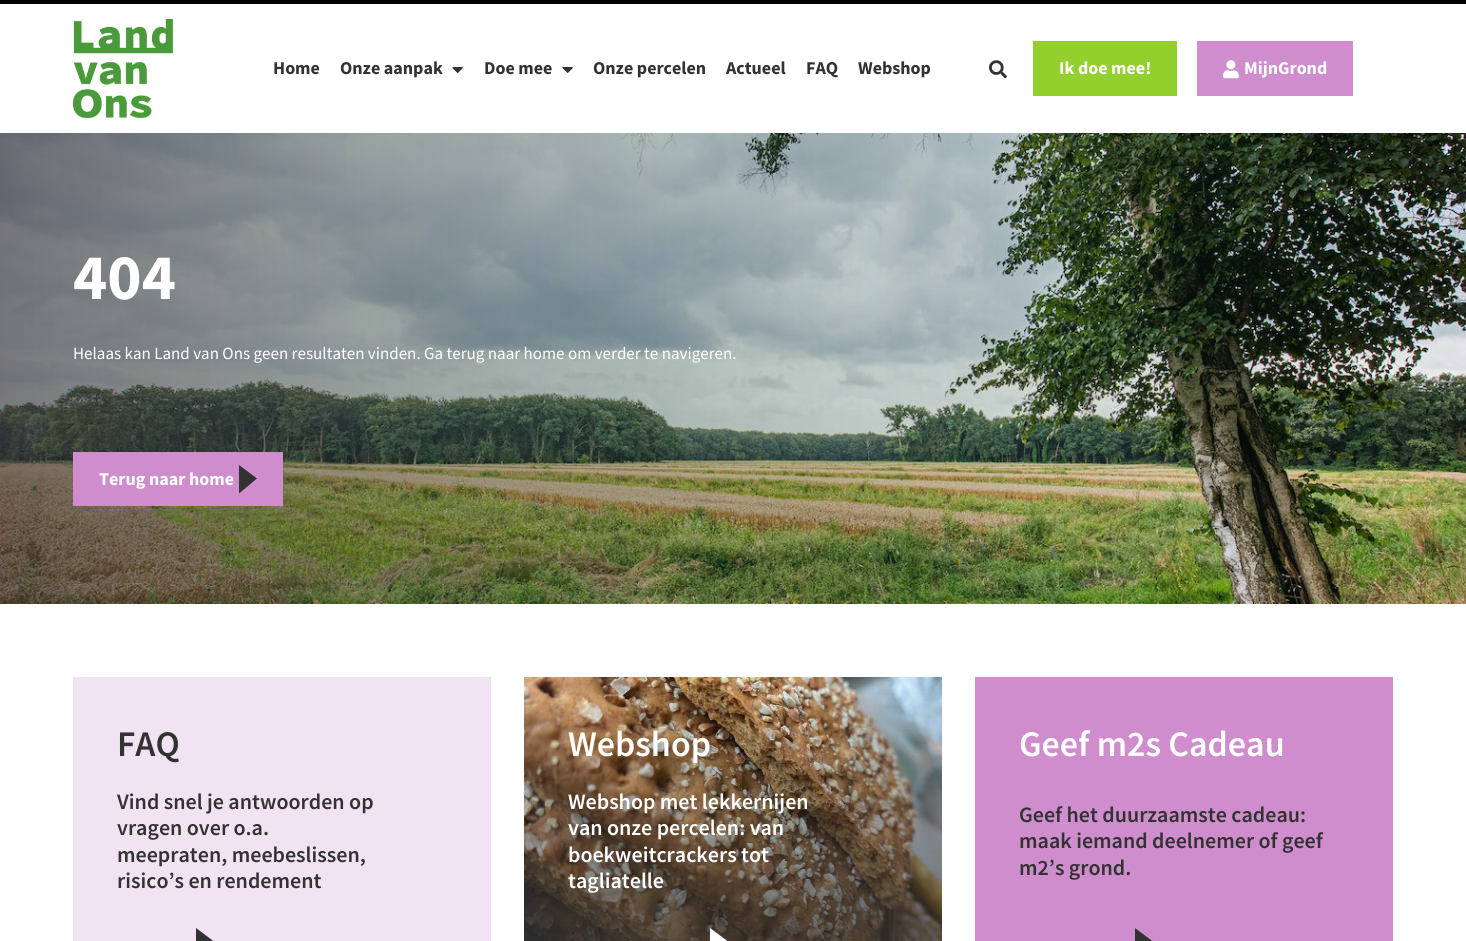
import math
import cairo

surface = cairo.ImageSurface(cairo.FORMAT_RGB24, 1466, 941)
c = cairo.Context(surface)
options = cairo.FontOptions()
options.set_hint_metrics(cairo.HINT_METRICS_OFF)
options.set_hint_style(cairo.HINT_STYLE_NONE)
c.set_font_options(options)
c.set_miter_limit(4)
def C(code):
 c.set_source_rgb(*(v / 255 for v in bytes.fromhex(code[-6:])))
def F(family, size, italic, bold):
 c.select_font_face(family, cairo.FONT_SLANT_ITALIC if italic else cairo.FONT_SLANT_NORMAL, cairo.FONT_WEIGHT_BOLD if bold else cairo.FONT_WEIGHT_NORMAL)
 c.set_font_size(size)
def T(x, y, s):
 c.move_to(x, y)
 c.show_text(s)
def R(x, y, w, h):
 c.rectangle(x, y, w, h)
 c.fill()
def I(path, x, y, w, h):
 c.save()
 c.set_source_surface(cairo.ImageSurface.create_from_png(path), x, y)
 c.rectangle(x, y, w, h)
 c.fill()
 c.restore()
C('ffffff')
c.paint()
C('000000')
R(0,0,1466,4)
I('1.png',73,18,100,100)
F('Source Sans Pro',18,0,1)
C('323232')
T(273,74,'Home')
T(340,74,'Onze aanpak')
I('2.png',452,67,11,6)
T(484,74,'Doe mee')
I('2.png',562,67,11,6)
T(593,74,'Onze percelen')
T(726,74,'Actueel')
T(806,74,'FAQ')
T(858,74,'Webshop')
I('3.png',989,60,18,19)
C('94d02d')
R(1033,41,144,55)
C('ffffff')
T(1059,74,'Ik doe mee!')
C('cf8dcd')
R(1197,41,156,55)
I('4.png',1223,60,16,19)
C('ffffff')
T(1244,74,'MijnGrond')
I('5.png',0,133,1466,471)
F('Source Sans Pro',65,0,1)
T(73,299,'404')
F('Source Sans 3',17,0,0)
T(73,359,'Helaas kan Land van Ons geen resultaten vinden. Ga terug naar home om verder te navigeren.')
C('cf8dcd')
R(73,452,210,54)
F('Source Sans Pro',18,0,1)
C('ffffff')
T(99,485,'Terug naar home')
C('323232')
c.new_path()
c.move_to(257,478.5)
c.line_to(239,493.5)
c.line_to(239,465)
c.close_path()
c.fill()
C('f2e3f3')
R(73,677,418,264)
F('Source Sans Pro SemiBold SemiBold',36,0,0)
C('323232')
T(117,756,'FAQ')
F('Source Sans Pro SemiBold SemiBold',22,0,0)
T(117,809,'Vind snel je antwoorden op')
T(117,835,'vragen over o.a.')
T(117,862,'meepraten, meebeslissen,')
T(117,888,'risico’s en rendement')
c.new_path()
c.move_to(214,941.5)
c.line_to(196,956.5)
c.line_to(196,928)
c.close_path()
c.fill()
I('6.png',524,677,418,264)
F('Source Sans Pro SemiBold SemiBold',36,0,0)
C('ffffff')
T(568,756,'Webshop')
F('Source Sans Pro SemiBold SemiBold',22,0,0)
T(568,809,'Webshop met lekkernijen')
T(568,835,'van onze percelen: van')
T(568,862,'boekweitcrackers tot')
T(568,888,'tagliatelle')
c.new_path()
c.move_to(728,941.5)
c.line_to(710,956.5)
c.line_to(710,928)
c.close_path()
c.fill()
C('cf8dcd')
R(975,677,418,264)
F('Source Sans Pro SemiBold SemiBold',36,0,0)
C('ffffff')
T(1019,756,'Geef m2s Cadeau')
F('Source Sans Pro SemiBold SemiBold',22,0,0)
C('323232')
T(1019,822,'Geef het duurzaamste cadeau:')
T(1019,848,'maak iemand deelnemer of geef')
T(1019,875,'m2’s grond.')
c.new_path()
c.move_to(1153,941.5)
c.line_to(1135,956.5)
c.line_to(1135,928)
c.close_path()
c.fill()
surface.write_to_png('o.png')
